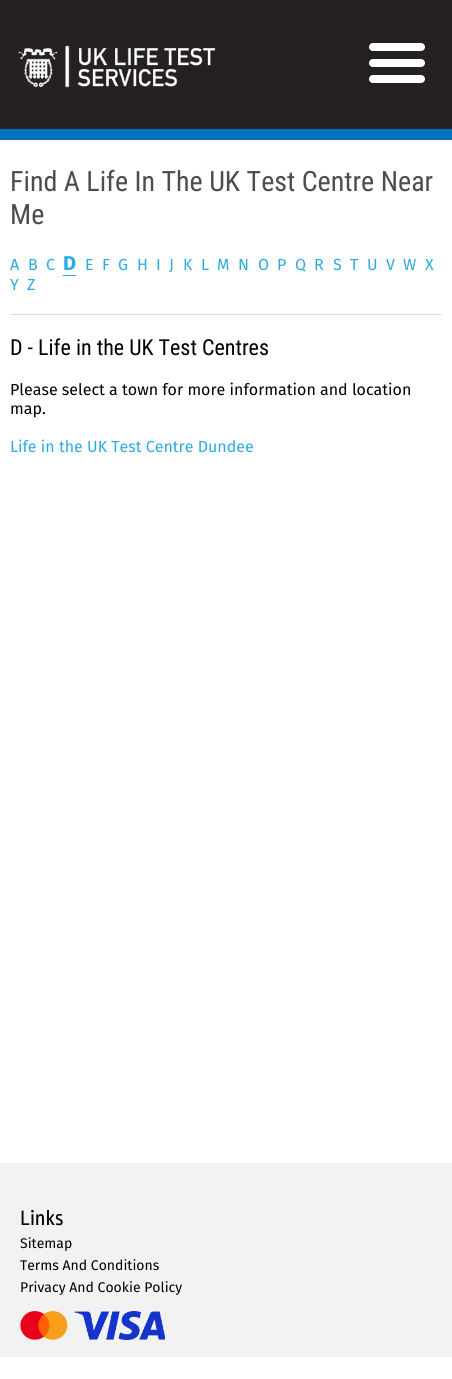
import math
import cairo

surface = cairo.ImageSurface(cairo.FORMAT_RGB24, 452, 1379)
c = cairo.Context(surface)
options = cairo.FontOptions()
options.set_hint_metrics(cairo.HINT_METRICS_OFF)
options.set_hint_style(cairo.HINT_STYLE_NONE)
c.set_font_options(options)
c.set_miter_limit(4)
def C(code):
 c.set_source_rgb(*(v / 255 for v in bytes.fromhex(code[-6:])))
def F(family, size, italic, bold):
 c.select_font_face(family, cairo.FONT_SLANT_ITALIC if italic else cairo.FONT_SLANT_NORMAL, cairo.FONT_WEIGHT_BOLD if bold else cairo.FONT_WEIGHT_NORMAL)
 c.set_font_size(size)
def T(x, y, s):
 c.move_to(x, y)
 c.show_text(s)
def R(x, y, w, h):
 c.rectangle(x, y, w, h)
 c.fill()
def I(path, x, y, w, h):
 c.save()
 c.set_source_surface(cairo.ImageSurface.create_from_png(path), x, y)
 c.rectangle(x, y, w, h)
 c.fill()
 c.restore()
C('ffffff')
c.paint()
C('252122')
R(0,0,452,129)
C('0071bc')
R(0,129,452,11)
I('1.png',18,45,198,43)
I('2.png',369,43,56,40)
F('Roboto Condensed',28,0,0)
C('4d4d4d')
T(10,191,'Find A Life In The UK Test Centre Near')
T(10,224,'Me')
C('dddddd')
R(10,314,432,1)
F('Fira Sans',16,0,0)
C('29abe2')
T(10,270,'A')
T(28,270,'B')
T(46,270,'C')
F('Fira Sans',20,0,1)
T(63,270,'D')
R(63,275,13,1)
F('Fira Sans',16,0,0)
T(85,270,'E')
T(102,270,'F')
T(118,270,'G')
T(137,270,'H')
T(156,270,'I')
T(169,270,'J')
T(183,270,'K')
T(201,270,'L')
T(217,270,'M')
T(238,270,'N')
T(258,270,'O')
T(277,270,'P')
T(295,270,'Q')
T(314,270,'R')
T(333,270,'S')
T(350,270,'T')
T(367,270,'U')
T(386,270,'V')
T(403,270,'W')
T(425,270,'X')
T(10,290,'Y')
T(27,290,'Z')
F('Roboto Condensed',22,0,0)
C('000000')
T(10,355,'D - Life in the UK Test Centres')
F('Fira Sans',16,0,0)
T(10,395,'Please select a town for more information and location')
T(10,414,'map.')
C('29abe2')
T(10,452,'Life in the UK Test Centre Dundee')
C('f2f2f2')
R(0,1163,452,194)
F('Ropa Sans',22,0,0)
C('000000')
T(20,1225,'Links')
F('Fira Sans',14,0,0)
T(20,1248,'Sitemap')
T(20,1270,'Terms And Conditions')
T(20,1292,'Privacy And Cookie Policy')
I('3.png',20,1311,145,29)
surface.write_to_png('o.png')
